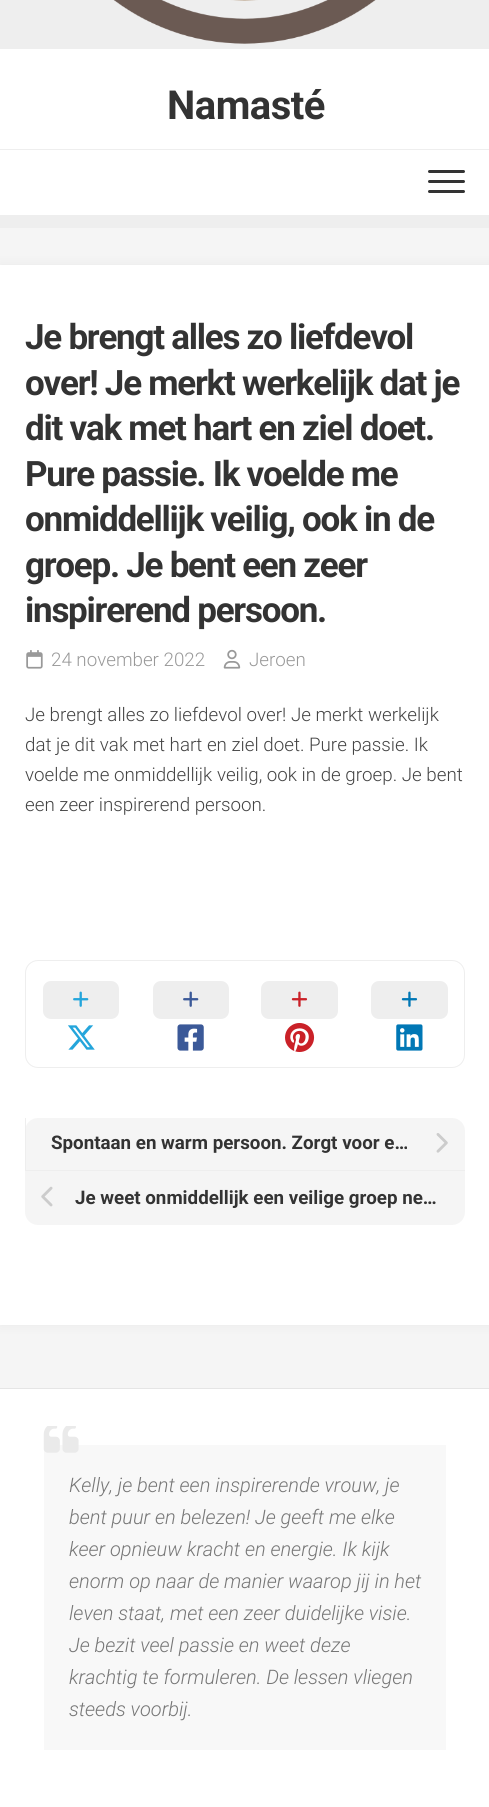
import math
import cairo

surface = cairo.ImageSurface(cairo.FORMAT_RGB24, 489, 1807)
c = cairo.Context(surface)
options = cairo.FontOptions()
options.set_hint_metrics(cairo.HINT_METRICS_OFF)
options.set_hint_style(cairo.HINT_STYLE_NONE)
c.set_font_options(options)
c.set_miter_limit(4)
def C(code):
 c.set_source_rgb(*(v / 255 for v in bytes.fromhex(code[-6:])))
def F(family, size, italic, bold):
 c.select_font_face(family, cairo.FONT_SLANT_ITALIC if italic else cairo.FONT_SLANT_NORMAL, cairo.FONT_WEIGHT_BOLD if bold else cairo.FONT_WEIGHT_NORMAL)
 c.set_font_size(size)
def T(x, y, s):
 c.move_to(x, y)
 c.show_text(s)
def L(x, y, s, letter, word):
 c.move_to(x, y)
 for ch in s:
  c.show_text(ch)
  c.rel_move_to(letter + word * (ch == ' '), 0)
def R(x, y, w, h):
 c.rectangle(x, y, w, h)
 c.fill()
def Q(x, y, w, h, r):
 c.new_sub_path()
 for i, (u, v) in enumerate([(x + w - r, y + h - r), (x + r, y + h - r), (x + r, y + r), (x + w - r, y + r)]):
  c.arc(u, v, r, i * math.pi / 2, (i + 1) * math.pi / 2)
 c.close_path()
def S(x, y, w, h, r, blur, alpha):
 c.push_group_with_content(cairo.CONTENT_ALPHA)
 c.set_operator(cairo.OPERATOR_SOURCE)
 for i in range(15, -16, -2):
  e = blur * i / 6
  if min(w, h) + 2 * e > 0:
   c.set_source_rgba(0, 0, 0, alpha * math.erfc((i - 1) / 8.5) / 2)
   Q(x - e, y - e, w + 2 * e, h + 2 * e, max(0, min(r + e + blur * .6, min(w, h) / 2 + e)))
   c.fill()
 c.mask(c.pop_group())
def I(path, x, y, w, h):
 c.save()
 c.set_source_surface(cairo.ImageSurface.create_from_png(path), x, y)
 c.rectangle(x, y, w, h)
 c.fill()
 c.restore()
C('f5f5f5')
c.paint()
C('eeeeee')
R(0,0,489,49)
I('1.png',113,0,263,44)
C('ffffff')
R(0,49,489,166)
C('eeeeee')
R(0,149,489,1)
F('Roboto',40,0,1)
C('333333')
L(167,119,'Namasté',-.5,0)
Q(428,170,37,3,1.5)
c.fill()
Q(428,180,37,3,1.5)
c.fill()
Q(428,190,37,3,1.5)
c.fill()
C('eeeeee')
R(0,215,489,13)
C('000000')
S(0,265,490,1060,0,6,.05)
C('ffffff')
R(0,265,489,1060)
F('Roboto',35,0,1)
C('333333')
L(25,349,'Je brengt alles zo liefdevol',-1.25,0)
L(25,395,'over! Je merkt werkelijk dat je',-1.25,0)
L(25,440,'dit vak met hart en ziel doet.',-1.25,0)
L(25,486,'Pure passie. Ik voelde me',-1.25,0)
L(25,531,'onmiddellijk veilig, ook in de',-1.25,0)
L(25,577,'groep. Je bent een zeer',-1.25,0)
L(25,622,'inspirerend persoon.',-1.25,0)
I('2.png',26,650,17,19)
F('Roboto Light',18.75,0,0)
C('999999')
T(51,666,'24 november 2022')
I('3.png',223,649,18,20)
T(249,666,'Jeroen')
C('444444')
T(25,721,'Je brengt alles zo liefdevol over! Je merkt werkelijk')
T(25,751,'dat je dit vak met hart en ziel doet. Pure passie. Ik')
T(25,781,'voelde me onmiddellijk veilig, ook in de groep. Je bent')
T(25,811,'een zeer inspirerend persoon.')
Q(25.5,960.5,439,107,12.5)
C('eeeeee')
c.set_line_width(1)
c.stroke()
Q(43,981,76,38,8)
c.fill()
I('4.png',73,991,16,16)
I('5.png',68,1025,27,25)
Q(153,981,76,38,8)
c.fill()
I('6.png',183,991,16,16)
I('7.png',177,1024,27,27)
Q(261,981,77,38,8)
c.fill()
I('8.png',291,991,17,16)
I('9.png',285,1023,30,29)
Q(371,981,77,38,8)
c.fill()
I('10.png',401,991,17,16)
I('11.png',396,1024,27,27)
C('f5f5f5')
Q(25,1118,440,107,13)
c.fill()
C('eeeeee')
R(25,1118,1,52)
F('Roboto',18.75,0,1)
C('333333')
T(51,1149,'Spontaan en warm persoon. Zorgt voor e…')
I('12.png',436,1133,12,20)
C('eeeeee')
R(25,1170,440,1)
I('13.png',41,1186,12,21)
C('333333')
T(75,1204,'Je weet onmiddellijk een veilige groep ne…')
C('ffffff')
R(0,1389,489,418)
C('e5e5e5')
R(0,1388,489,1)
C('f8f8f8')
R(44,1445,402,305)
I('14.png',43,1426,36,27)
F('Roboto Light',20,1,0)
C('777777')
T(69,1492,'Kelly, je bent een inspirerende vrouw, je')
T(69,1524,'bent puur en belezen! Je geeft me elke')
T(69,1556,'keer opnieuw kracht en energie. Ik kijk')
T(69,1588,'enorm op naar de manier waarop jij in het')
T(69,1620,'leven staat, met een zeer duidelijke visie.')
T(69,1652,'Je bezit veel passie en weet deze')
T(69,1684,'krachtig te formuleren. De lessen vliegen')
T(69,1716,'steeds voorbij.')
surface.write_to_png('o.png')
